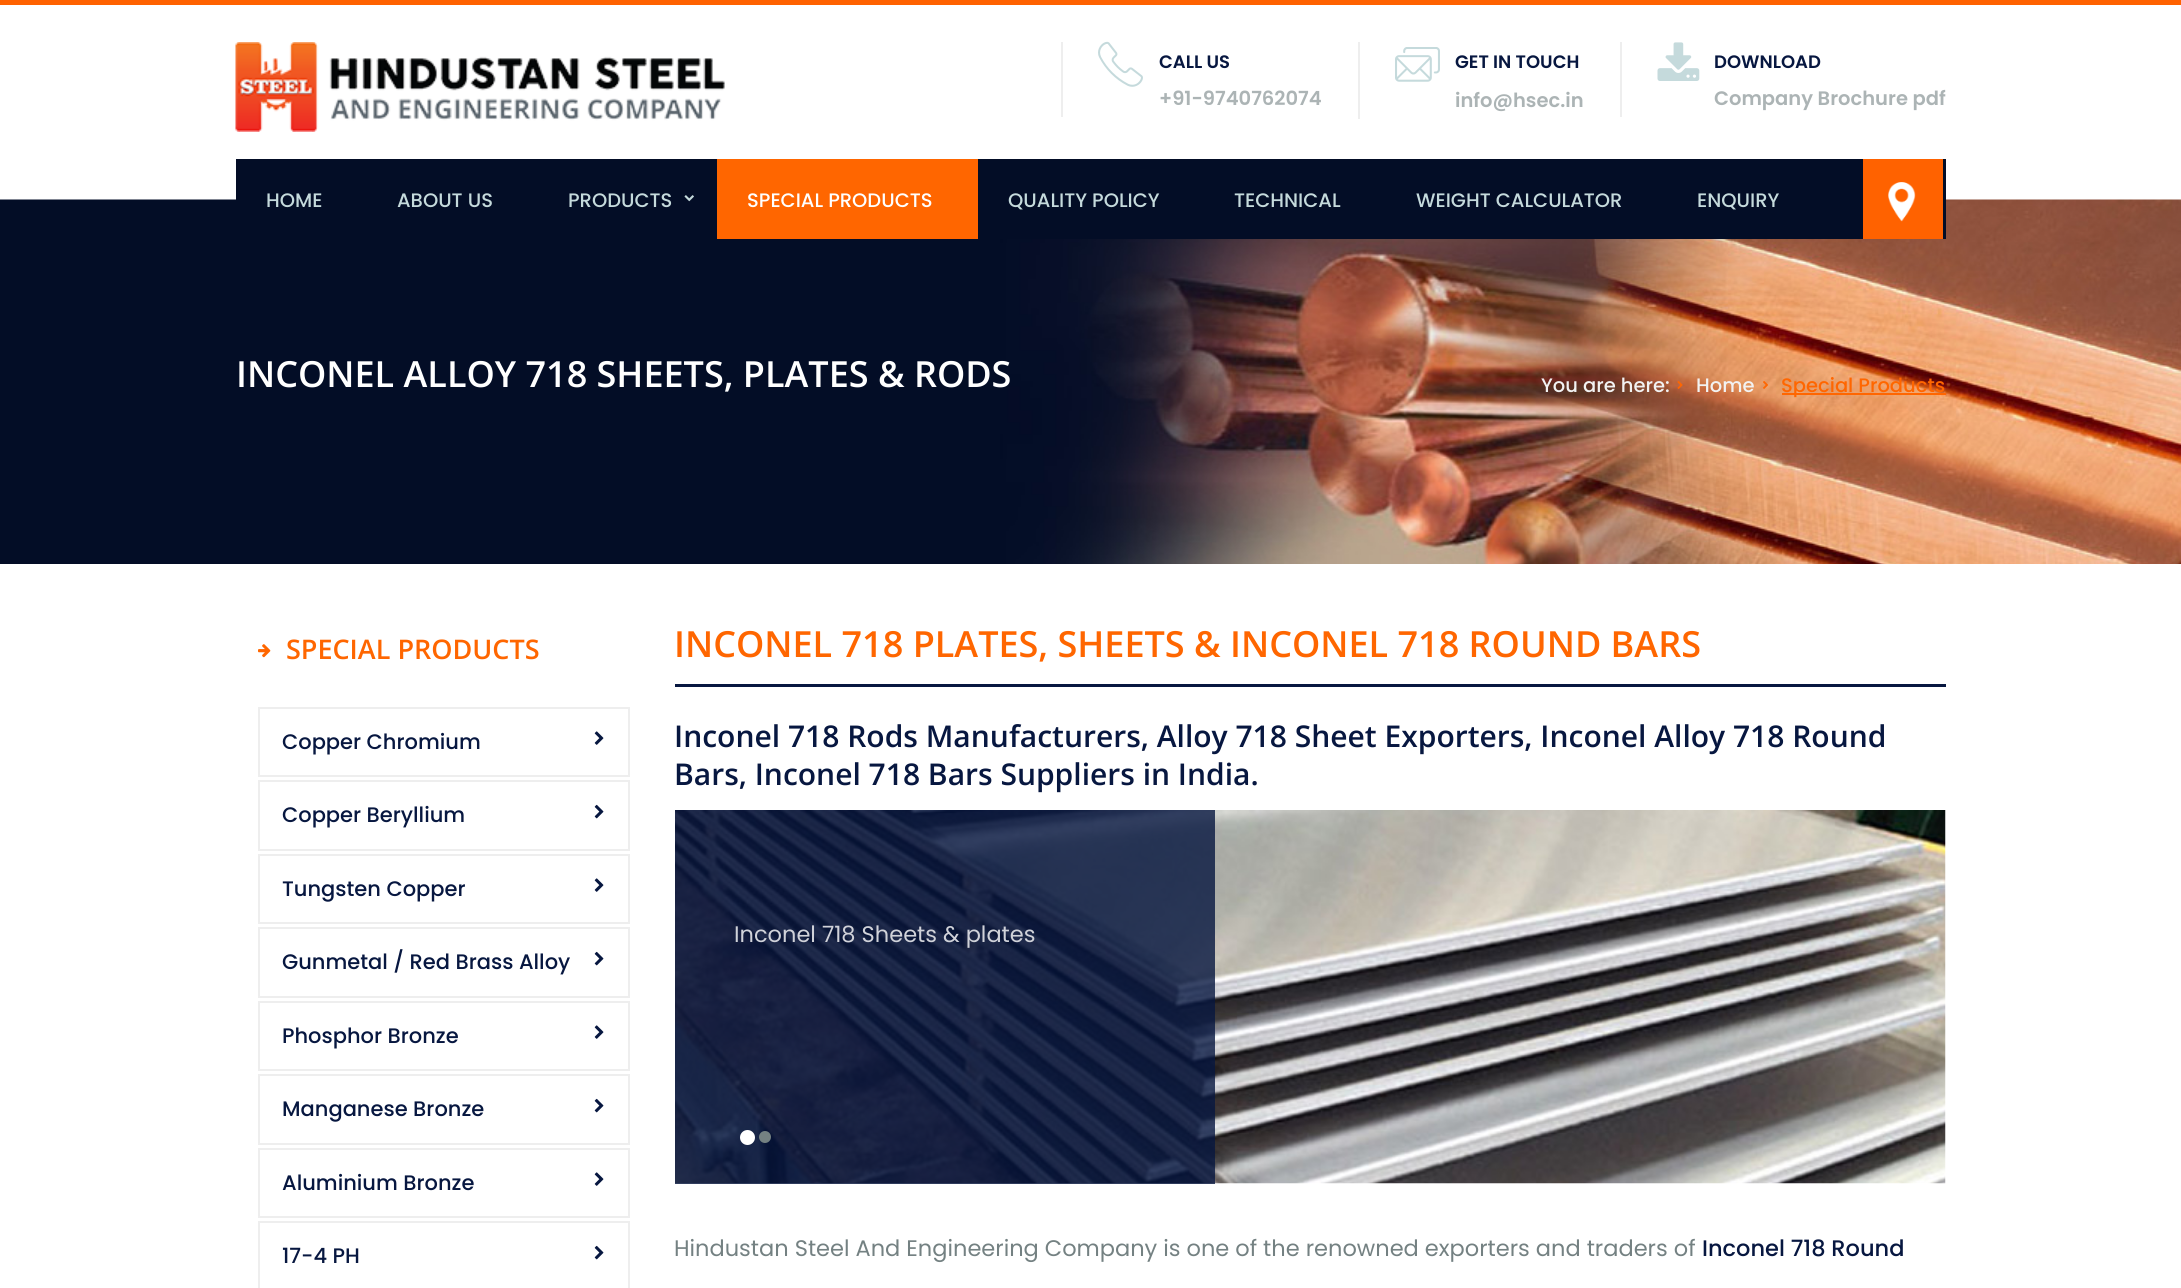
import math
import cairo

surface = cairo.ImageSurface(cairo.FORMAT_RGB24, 2181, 1288)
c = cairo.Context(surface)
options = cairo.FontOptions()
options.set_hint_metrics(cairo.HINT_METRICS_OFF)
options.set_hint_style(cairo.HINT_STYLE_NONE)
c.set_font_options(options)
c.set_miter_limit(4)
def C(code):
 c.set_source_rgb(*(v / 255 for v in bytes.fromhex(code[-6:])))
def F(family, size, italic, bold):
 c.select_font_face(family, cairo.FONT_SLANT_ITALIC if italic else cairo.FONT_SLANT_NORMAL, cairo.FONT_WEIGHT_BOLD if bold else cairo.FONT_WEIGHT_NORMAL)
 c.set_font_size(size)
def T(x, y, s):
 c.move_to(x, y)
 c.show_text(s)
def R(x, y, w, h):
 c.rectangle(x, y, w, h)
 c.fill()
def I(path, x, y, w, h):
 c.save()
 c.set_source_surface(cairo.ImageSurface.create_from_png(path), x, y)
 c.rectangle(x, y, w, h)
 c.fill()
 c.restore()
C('ffffff')
c.paint()
C('ff6200')
R(0,0,2181,5)
I('1.png',235,42,490,90)
C('eeeeee')
R(1061,42,2,75)
I('2.png',1098,41,45,46)
F('Poppins SemiBold',18,0,0)
C('071740')
T(1159,68,'CALL US')
F('Poppins SemiBold',19.5,0,0)
C('acb4b5')
T(1159,105,'+91-9740762074')
C('eeeeee')
R(1358,42,2,77)
I('3.png',1395,47,45,35)
F('Poppins SemiBold',18,0,0)
C('071740')
T(1455,68,'GET IN TOUCH')
F('Poppins SemiBold',19.5,0,0)
C('acb4b5')
T(1455,107,'info@hsec.in')
C('eeeeee')
R(1620,42,2,75)
I('4.png',1657,42,43,39)
F('Poppins SemiBold',18,0,0)
C('071740')
T(1714,68,'DOWNLOAD')
F('Poppins SemiBold',19.5,0,0)
C('acb4b5')
T(1714,105,'Company Brochure pdf')
I('7.png',0,199,2181,365)
C('030d26')
R(236,159,1710,80)
F('Poppins Medium',19.5,0,0)
C('c5dadc')
T(266,207,'HOME')
T(397,207,'ABOUT US')
T(568,207,'PRODUCTS')
I('5.png',684,195,10,7)
C('ff6600')
R(717,159,261,80)
C('ffffff')
T(747,207,'SPECIAL PRODUCTS')
C('c5dadc')
T(1008,207,'QUALITY POLICY')
T(1234,207,'TECHNICAL')
T(1416,207,'WEIGHT CALCULATOR')
T(1697,207,'ENQUIRY')
C('ff6200')
R(1863,159,80,80)
I('6.png',1888,182,28,40)
F('Open Sans SemiBold',36,0,0)
C('ffffff')
T(236,387,'INCONEL ALLOY 718 SHEETS, PLATES & RODS')
F('Poppins Medium',19.5,0,0)
C('f2f2f2')
T(1541,392,'You are here:')
I('8.png',1677,381,6,8)
T(1696,392,'Home')
I('9.png',1763,381,5,8)
C('ff6600')
R(1782,393,164,2)
T(1781,392,'Special Products')
I('10.png',258,644,13,14)
F('Open Sans SemiBold',27,0,0)
T(286,659,'SPECIAL PRODUCTS')
c.rectangle(259,708,370,68)
C('eeeeee')
c.stroke()
F('Poppins Medium',21,0,0)
C('071740')
T(282,749,'Copper Chromium')
I('11.png',594,731,10,14)
c.rectangle(259,781,370,69)
C('eeeeee')
c.stroke()
C('071740')
T(282,822,'Copper Beryllium')
I('12.png',594,804,10,15)
c.rectangle(259,855,370,68)
C('eeeeee')
c.stroke()
C('071740')
T(282,896,'Tungsten Copper')
I('11.png',594,878,10,14)
c.rectangle(259,928,370,69)
C('eeeeee')
c.stroke()
C('071740')
T(282,969,'Gunmetal / Red Brass Alloy')
I('12.png',594,951,10,15)
c.rectangle(259,1002,370,68)
C('eeeeee')
c.stroke()
C('071740')
T(282,1043,'Phosphor Bronze')
I('11.png',594,1025,10,14)
c.rectangle(259,1075,370,69)
C('eeeeee')
c.stroke()
C('071740')
T(282,1116,'Manganese Bronze')
I('12.png',594,1098,10,15)
c.rectangle(259,1149,370,68)
C('eeeeee')
c.stroke()
C('071740')
T(282,1190,'Aluminium Bronze')
I('11.png',594,1172,10,14)
c.rectangle(259,1222,370,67)
C('eeeeee')
c.stroke()
C('071740')
T(282,1263,'17-4 PH')
I('12.png',594,1245,10,15)
R(675,684,1271,3)
F('Open Sans SemiBold',36,0,0)
C('ff6600')
T(674,657,'INCONEL 718 PLATES, SHEETS & INCONEL 718 ROUND BARS')
F('Open Sans SemiBold',30,0,0)
C('071740')
T(674,747,'Inconel 718 Rods Manufacturers, Alloy 718 Sheet Exporters, Inconel Alloy 718 Round')
T(674,785,'Bars, Inconel 718 Bars Suppliers in India.')
I('13.png',675,810,1271,374)
c.set_source_rgba(0.027,0.09,0.251,0.8)
R(675,810,540,374)
F('Poppins',22.5,0,0)
C('d0d2d9')
T(734,942,'Inconel 718 Sheets & plates')
C('ffffff')
c.new_path()
c.arc(747.5,1137.5,7.5,0,2 * math.pi)
c.fill()
C('748182')
c.arc(765,1137,6,0,2 * math.pi)
c.fill()
T(674,1256,'Hindustan Steel And Engineering Company is one of the renowned exporters and traders of')
F('Poppins Medium',22.5,0,0)
C('071740')
T(1702,1256,'Inconel 718 Round')
surface.write_to_png('o.png')
